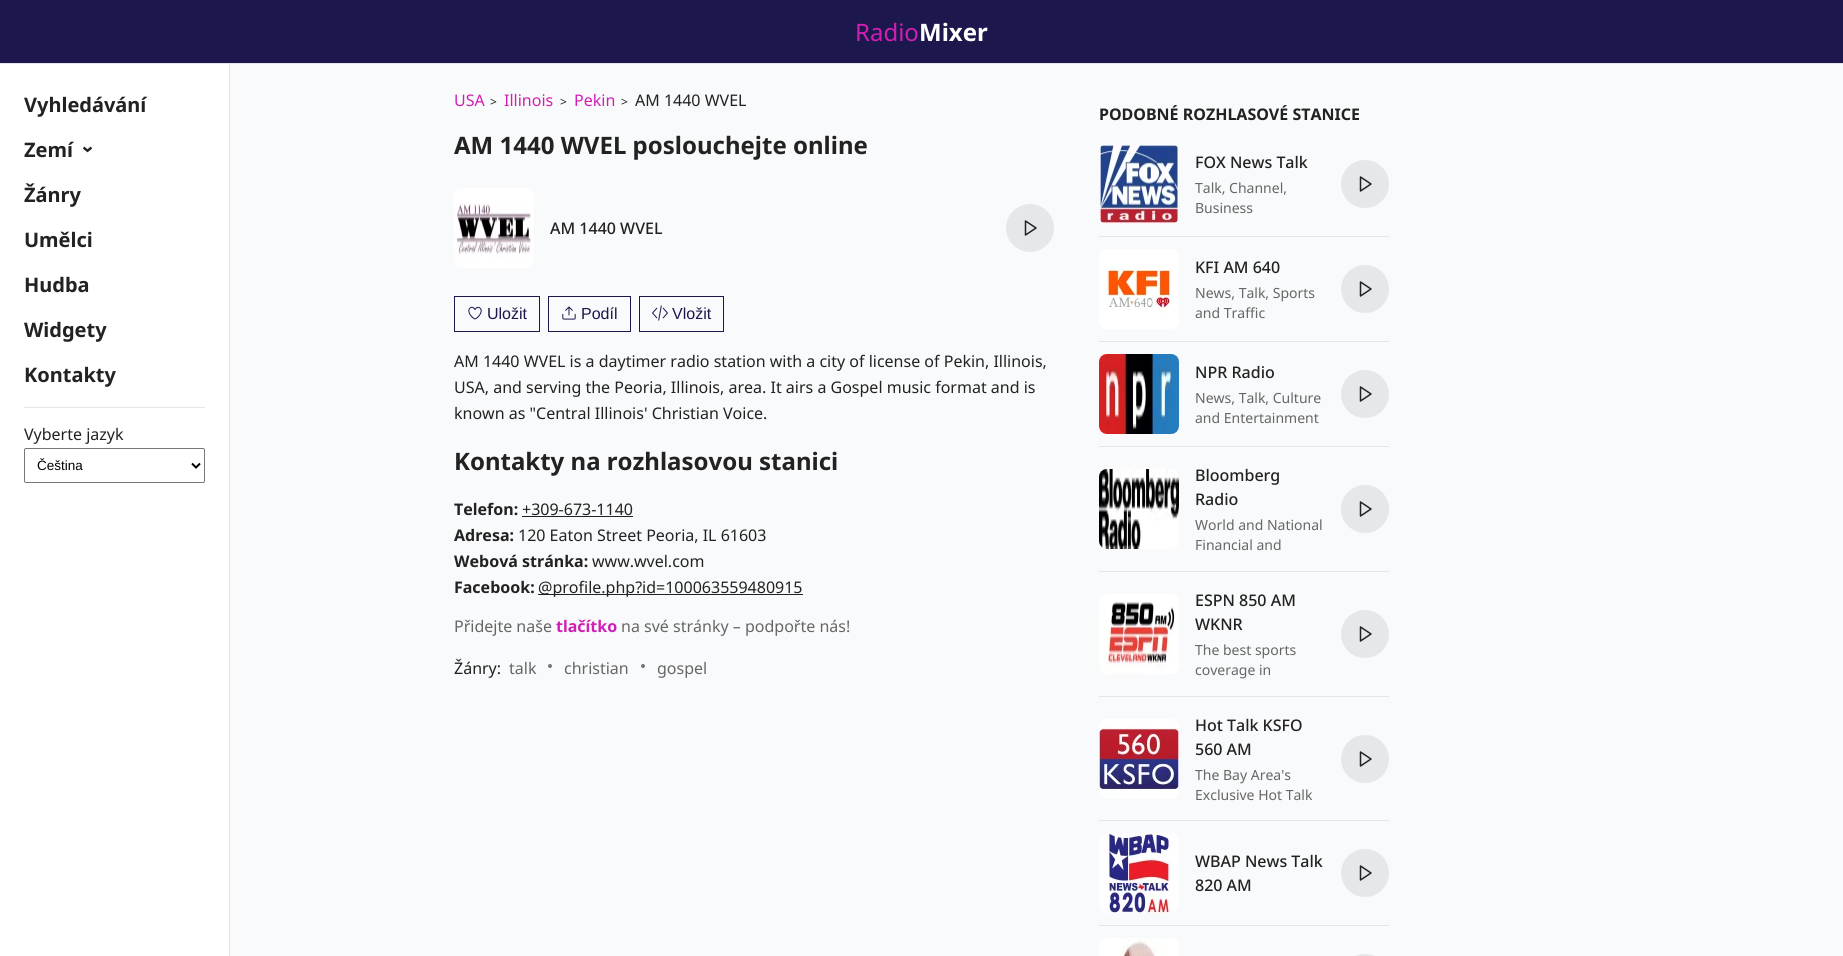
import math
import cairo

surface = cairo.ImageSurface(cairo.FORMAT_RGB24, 1843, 956)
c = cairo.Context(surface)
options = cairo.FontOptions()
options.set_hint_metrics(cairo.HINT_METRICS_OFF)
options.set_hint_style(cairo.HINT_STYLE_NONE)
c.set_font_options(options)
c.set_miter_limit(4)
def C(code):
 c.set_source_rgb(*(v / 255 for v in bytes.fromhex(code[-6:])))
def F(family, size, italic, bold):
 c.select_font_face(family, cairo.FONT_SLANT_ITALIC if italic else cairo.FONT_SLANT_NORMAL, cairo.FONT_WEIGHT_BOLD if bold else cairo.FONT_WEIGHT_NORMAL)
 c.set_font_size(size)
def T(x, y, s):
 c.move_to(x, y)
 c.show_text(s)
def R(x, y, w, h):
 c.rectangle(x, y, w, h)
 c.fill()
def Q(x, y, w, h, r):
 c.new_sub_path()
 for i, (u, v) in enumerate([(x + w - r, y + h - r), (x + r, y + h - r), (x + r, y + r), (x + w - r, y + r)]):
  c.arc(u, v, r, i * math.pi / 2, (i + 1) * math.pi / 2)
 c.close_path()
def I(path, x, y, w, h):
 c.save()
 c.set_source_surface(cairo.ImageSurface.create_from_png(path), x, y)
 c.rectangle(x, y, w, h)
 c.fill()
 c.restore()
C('f9fafb')
c.paint()
C('1c174d')
R(0,0,1843,63)
C('e6e6e6')
R(0,63,1843,1)
F('Noto Sans',24,0,0)
C('d11eb3')
T(855,41,'Radio')
F('Noto Sans',24,0,1)
C('ffffff')
T(919,41,'Mixer')
R(0,64,229,892)
C('e6e6e6')
R(229,64,1,892)
F('Noto Sans',20,0,1)
C('222222')
T(24,112,'Vyhledávání')
T(24,157,'Zemí')
c.save()
c.translate(93,153)
c.rotate(-90 * math.pi / 180)
T(0,0,'‹')
c.restore()
T(24,202,'Žánry')
T(24,247,'Umělci')
T(24,292,'Hudba')
T(24,337,'Widgety')
T(24,382,'Kontakty')
C('e6e6e6')
R(24,407,181,1)
F('Noto Sans',16,0,0)
C('222222')
T(24,440,'Vyberte jazyk')
Q(24.5,448.5,180,34,1.5)
C('767676')
c.set_line_width(1)
c.stroke()
c.new_path()
c.move_to(192,463.5)
c.line_to(196,467.5)
c.line_to(200,463.5)
C('000000')
c.set_line_width(2)
c.stroke()
F('Liberation Sans',13.5,0,0)
T(37,470,'Čeština')
F('Noto Sans',16,0,0)
C('d11eb3')
T(454,106,'USA')
F('Noto Sans',12,0,0)
C('222222')
T(490,106,'>')
F('Noto Sans',16,0,0)
C('d11eb3')
T(504,106,'Illinois')
F('Noto Sans',12,0,0)
C('222222')
T(560,106,'>')
F('Noto Sans',16,0,0)
C('d11eb3')
T(574,106,'Pekin')
F('Noto Sans',12,0,0)
C('222222')
T(621,106,'>')
F('Noto Sans',16,0,0)
T(635,106,'AM 1440 WVEL')
F('Noto Sans',24,0,1)
T(454,154,'AM 1440 WVEL poslouchejte online')
I('1.png',454,188,80,80)
F('Noto Sans Medium',16,0,0)
T(550,234,'AM 1440 WVEL')
C('e5e7eb')
c.new_path()
c.arc(1030,228,24,0,2 * math.pi)
c.fill()
c.new_path()
c.move_to(1025.5,221)
c.line_to(1036,228)
c.line_to(1025.5,235)
c.close_path()
C('222222')
c.set_line_width(1.5)
c.set_line_cap(cairo.LINE_CAP_ROUND)
c.set_line_join(cairo.LINE_JOIN_ROUND)
c.stroke()
c.rectangle(454.5,296.5,85,35)
C('1c174d')
c.set_line_width(1)
c.set_line_cap(cairo.LINE_CAP_BUTT)
c.set_line_join(cairo.LINE_JOIN_MITER)
c.stroke()
I('2.png',468,306,14,14)
F('Liberation Sans',16,0,0)
T(487,319,'Uložit')
c.rectangle(548.5,296.5,82,35)
c.stroke()
I('3.png',562,306,14,14)
T(581,319,'Podíl')
c.rectangle(639.5,296.5,84,35)
c.stroke()
I('4.png',652,305,16,16)
T(672,319,'Vložit')
F('Noto Sans',16,0,0)
C('222222')
T(454,367,'AM 1440 WVEL is a daytimer radio station with a city of license of Pekin, Illinois,')
T(454,393,'USA, and serving the Peoria, Illinois, area. It airs a Gospel music format and is')
T(454,419,'known as "Central Illinois\' Christian Voice.')
F('Noto Sans',24,0,1)
T(454,470,'Kontakty na rozhlasovou stanici')
F('Noto Sans',16,0,1)
T(454,515,'Telefon:')
F('Noto Sans',16,0,0)
T(522,515,'+309-673-1140')
R(522,516,111,1)
F('Noto Sans',16,0,1)
T(454,541,'Adresa:')
F('Noto Sans',16,0,0)
T(518,541,'120 Eaton Street Peoria, IL 61603')
F('Noto Sans',16,0,1)
T(454,567,'Webová stránka:')
F('Noto Sans',16,0,0)
T(592,567,'www.wvel.com')
F('Noto Sans',16,0,1)
T(454,593,'Facebook:')
R(538,594,265,1)
F('Noto Sans',16,0,0)
T(538,593,'@profile.php?id=100063559480915')
C('666666')
T(454,632,'Přidejte naše')
F('Noto Sans',16,0,1)
C('d11eb3')
T(556,632,'tlačítko')
F('Noto Sans',16,0,0)
C('666666')
T(621,632,'na své stránky – podpořte nás!')
C('222222')
T(454,674,'Žánry:')
C('666666')
T(509,674,'talk')
C('757575')
c.new_path()
c.arc(550,666,2,0,2 * math.pi)
c.fill()
C('666666')
T(564,674,'christian')
C('757575')
c.new_path()
c.arc(643,666,2,0,2 * math.pi)
c.fill()
C('666666')
T(657,674,'gospel')
F('Noto Sans',16,0,1)
C('222222')
T(1099,120,'PODOBNÉ ROZHLASOVÉ STANICE')
C('e6e6e6')
R(1099,236,290,1)
I('5.png',1099,144,80,80)
F('Noto Sans Medium',16,0,0)
C('222222')
T(1195,168,'FOX News Talk')
F('Noto Sans',14,0,0)
C('666666')
T(1195,193,'Talk, Channel,')
T(1195,213,'Business')
C('e5e7eb')
c.new_path()
c.arc(1365,184,24,0,2 * math.pi)
c.fill()
c.new_path()
c.move_to(1360.5,177)
c.line_to(1371,184)
c.line_to(1360.5,191)
c.close_path()
C('222222')
c.set_line_width(1.5)
c.set_line_cap(cairo.LINE_CAP_ROUND)
c.set_line_join(cairo.LINE_JOIN_ROUND)
c.stroke()
C('e6e6e6')
R(1099,341,290,1)
I('6.png',1099,249,80,80)
F('Noto Sans Medium',16,0,0)
C('222222')
T(1195,273,'KFI AM 640')
F('Noto Sans',14,0,0)
C('666666')
T(1195,298,'News, Talk, Sports')
T(1195,318,'and Traffic')
C('e5e7eb')
c.new_path()
c.arc(1365,289,24,0,2 * math.pi)
c.fill()
c.new_path()
c.move_to(1360.5,282)
c.line_to(1371,289)
c.line_to(1360.5,296)
c.close_path()
C('222222')
c.stroke()
C('e6e6e6')
R(1099,446,290,1)
I('7.png',1099,354,80,80)
F('Noto Sans Medium',16,0,0)
C('222222')
T(1195,378,'NPR Radio')
F('Noto Sans',14,0,0)
C('666666')
T(1195,403,'News, Talk, Culture')
T(1195,423,'and Entertainment')
C('e5e7eb')
c.new_path()
c.arc(1365,394,24,0,2 * math.pi)
c.fill()
c.new_path()
c.move_to(1360.5,387)
c.line_to(1371,394)
c.line_to(1360.5,401)
c.close_path()
C('222222')
c.stroke()
C('e6e6e6')
R(1099,571,290,1)
I('8.png',1099,469,80,80)
F('Noto Sans Medium',16,0,0)
C('222222')
T(1195,481,'Bloomberg')
T(1195,505,'Radio')
F('Noto Sans',14,0,0)
C('666666')
T(1195,530,'World and National')
T(1195,550,'Financial and')
C('e5e7eb')
c.new_path()
c.arc(1365,509,24,0,2 * math.pi)
c.fill()
c.new_path()
c.move_to(1360.5,502)
c.line_to(1371,509)
c.line_to(1360.5,516)
c.close_path()
C('222222')
c.stroke()
C('e6e6e6')
R(1099,696,290,1)
I('9.png',1099,594,80,80)
F('Noto Sans Medium',16,0,0)
C('222222')
T(1195,606,'ESPN 850 AM')
T(1195,630,'WKNR')
F('Noto Sans',14,0,0)
C('666666')
T(1195,655,'The best sports')
T(1195,675,'coverage in')
C('e5e7eb')
c.new_path()
c.arc(1365,634,24,0,2 * math.pi)
c.fill()
c.new_path()
c.move_to(1360.5,627)
c.line_to(1371,634)
c.line_to(1360.5,641)
c.close_path()
C('222222')
c.stroke()
C('e6e6e6')
R(1099,820,290,1)
I('10.png',1099,719,80,80)
F('Noto Sans Medium',16,0,0)
C('222222')
T(1195,731,'Hot Talk KSFO')
T(1195,755,'560 AM')
F('Noto Sans',14,0,0)
C('666666')
T(1195,780,'The Bay Area\'s')
T(1195,800,'Exclusive Hot Talk')
C('e5e7eb')
c.new_path()
c.arc(1365,759,24,0,2 * math.pi)
c.fill()
c.new_path()
c.move_to(1360.5,752)
c.line_to(1371,759)
c.line_to(1360.5,766)
c.close_path()
C('222222')
c.stroke()
C('e6e6e6')
R(1099,925,290,1)
I('11.png',1099,833,80,80)
F('Noto Sans Medium',16,0,0)
C('222222')
T(1195,867,'WBAP News Talk')
T(1195,891,'820 AM')
C('e5e7eb')
c.new_path()
c.arc(1365,873,24,0,2 * math.pi)
c.fill()
c.new_path()
c.move_to(1360.5,866)
c.line_to(1371,873)
c.line_to(1360.5,880)
c.close_path()
C('222222')
c.stroke()
I('12.png',1099,938,80,18)
C('e5e7eb')
Q(1341,954,48,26,24)
c.fill()
surface.write_to_png('o.png')
